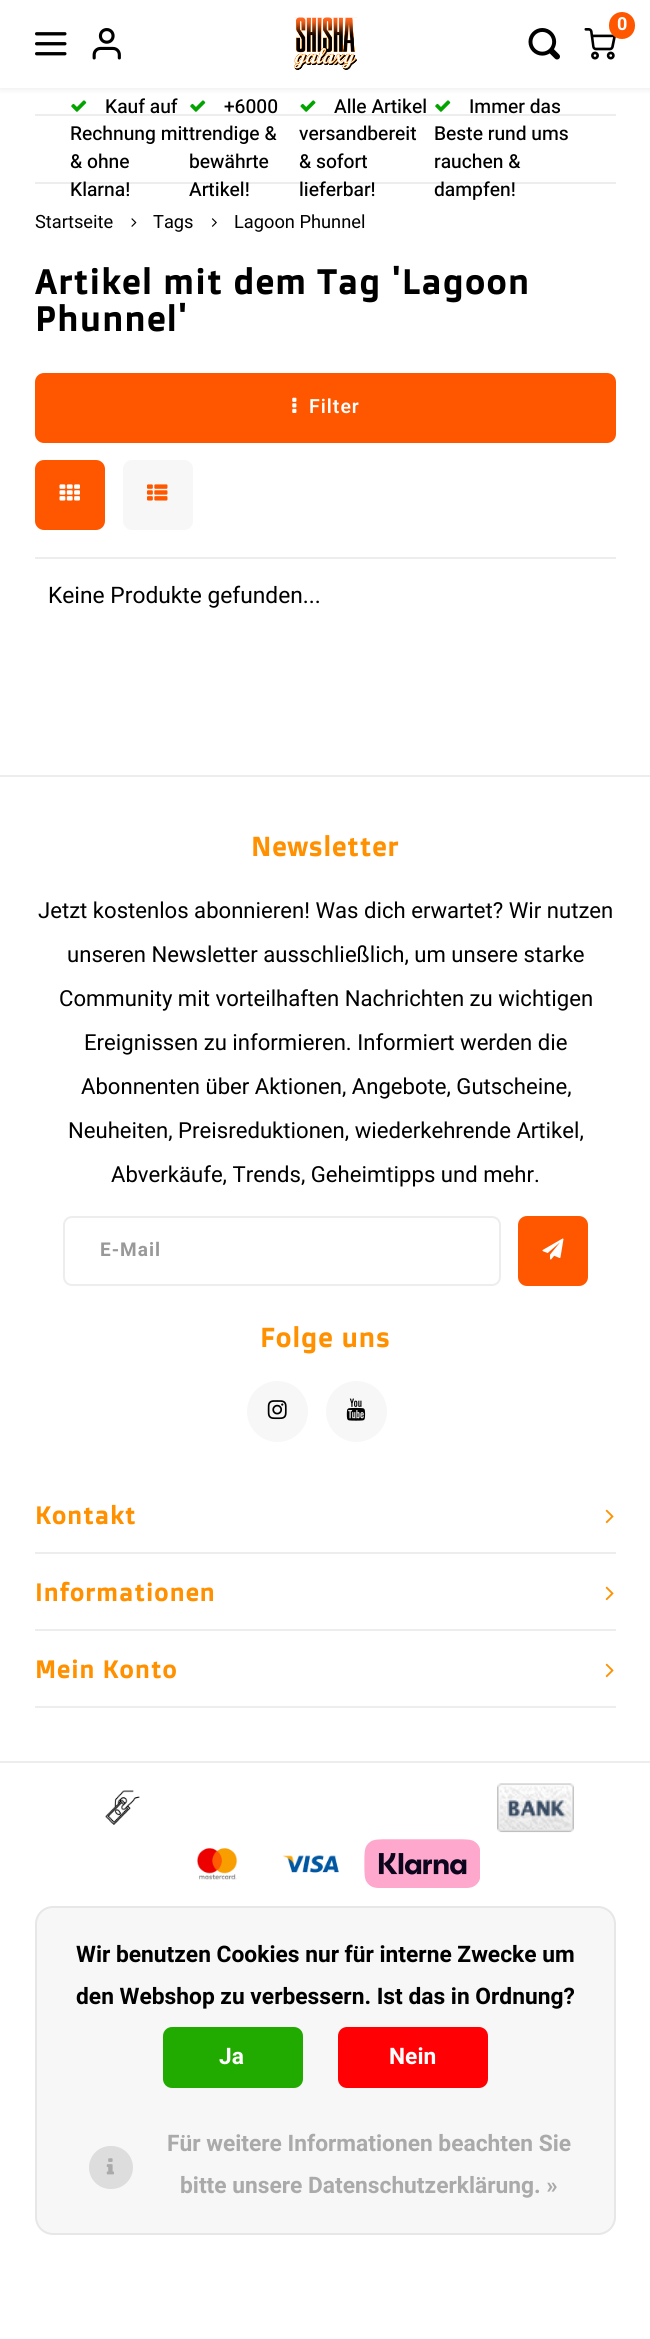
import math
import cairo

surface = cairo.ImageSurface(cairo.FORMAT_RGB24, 650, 2339)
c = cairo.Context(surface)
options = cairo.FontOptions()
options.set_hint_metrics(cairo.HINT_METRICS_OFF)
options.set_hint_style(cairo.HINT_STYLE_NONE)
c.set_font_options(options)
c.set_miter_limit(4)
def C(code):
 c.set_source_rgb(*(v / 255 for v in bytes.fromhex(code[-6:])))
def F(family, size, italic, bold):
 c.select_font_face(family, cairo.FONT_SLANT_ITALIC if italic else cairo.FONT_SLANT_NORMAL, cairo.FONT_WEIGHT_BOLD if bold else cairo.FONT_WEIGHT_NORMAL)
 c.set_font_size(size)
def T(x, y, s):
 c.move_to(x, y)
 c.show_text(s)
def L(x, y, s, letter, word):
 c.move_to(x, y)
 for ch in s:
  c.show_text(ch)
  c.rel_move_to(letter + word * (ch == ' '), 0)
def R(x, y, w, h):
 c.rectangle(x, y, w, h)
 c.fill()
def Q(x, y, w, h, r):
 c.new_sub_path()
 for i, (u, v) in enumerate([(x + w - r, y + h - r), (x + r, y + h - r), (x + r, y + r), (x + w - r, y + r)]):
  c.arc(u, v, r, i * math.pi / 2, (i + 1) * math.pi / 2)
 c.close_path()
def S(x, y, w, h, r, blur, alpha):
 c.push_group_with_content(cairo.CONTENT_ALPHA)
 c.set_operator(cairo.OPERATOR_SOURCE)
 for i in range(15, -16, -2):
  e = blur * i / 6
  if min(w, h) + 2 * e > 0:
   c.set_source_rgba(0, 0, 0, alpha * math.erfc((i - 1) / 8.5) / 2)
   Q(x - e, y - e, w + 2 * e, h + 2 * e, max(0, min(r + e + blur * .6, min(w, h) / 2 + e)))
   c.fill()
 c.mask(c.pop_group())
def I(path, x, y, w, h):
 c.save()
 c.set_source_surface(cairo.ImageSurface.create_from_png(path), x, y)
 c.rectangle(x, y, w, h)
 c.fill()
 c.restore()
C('ffffff')
c.paint()
I('6.png',71,100,16,12)
I('7.png',300,100,16,12)
I('6.png',435,100,16,12)
I('6.png',190,100,16,12)
C('000000')
S(0,2,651,87,0,3.5,.08)
C('ffffff')
R(0,0,650,88)
I('1.png',294,17,63,53)
I('2.png',584,28,32,32)
C('ff5700')
Q(609,12,26,27,13)
c.fill()
F('Heebo',18,0,1)
C('ffffff')
T(617,30,'0')
I('3.png',528,28,32,32)
I('4.png',35,32,32,24)
I('5.png',92,28,29,32)
C('ededed')
R(35,114,581,2)
R(35,182,581,2)
F('Heebo Medium',19.25,0,0)
C('000000')
T(105,113,'Kauf auf')
T(70,140,'Rechnung mittrendige &')
T(70,168,'& ohne')
T(70,196,'Klarna!')
T(334,113,'Alle Artikel')
T(299,140,'versandbereit')
T(299,168,'& sofort')
T(299,196,'lieferbar!')
T(469,113,'Immer das')
T(434,140,'Beste rund ums')
T(434,168,'rauchen &')
T(434,196,'dampfen!')
T(224,113,'+6000')
T(189,168,'bewährte')
T(189,196,'Artikel!')
F('Heebo',18.25,0,0)
T(35,228,'Startseite')
I('8.png',131,218,6,9)
T(153,228,'Tags')
I('9.png',211,218,6,9)
T(234,228,'Lagoon Phunnel')
F('Doppio One',34.1,0,1)
L(35,294,'Artikel mit dem Tag \'Lagoon',1.7,0)
L(35,331,'Phunnel\'',1.7,0)
C('ededed')
R(35,557,581,2)
C('ff5700')
Q(35,373,581,70,9)
c.fill()
I('10.png',292,397,5,16)
F('Heebo SemiBold',19.5,0,0)
C('ffffff')
L(309,413,'Filter',1,0)
C('ff5700')
Q(35,460,70,70,9)
c.fill()
I('11.png',59,484,21,17)
C('f7f7f7')
Q(123,460,70,70,9)
c.fill()
I('12.png',147,484,21,17)
F('Heebo',22.75,0,0)
C('000000')
T(48,603,'Keine Produkte gefunden...')
C('ededed')
R(0,775,650,2)
F('Doppio One',26.5,0,1)
C('ff9000')
L(251,856,'Newsletter',1.25,0)
F('Heebo',22.1,0,0)
C('000000')
T(38,918,'Jetzt kostenlos abonnieren! Was dich erwartet? Wir nutzen')
T(67,962,'unseren Newsletter ausschließlich, um unsere starke')
T(59,1006,'Community mit vorteilhaften Nachrichten zu wichtigen')
T(84,1050,'Ereignissen zu informieren. Informiert werden die')
T(81,1094,'Abonnenten über Aktionen, Angebote, Gutscheine,')
T(68,1138,'Neuheiten, Preisreduktionen, wiederkehrende Artikel,')
T(111,1182,'Abverkäufe, Trends, Geheimtipps und mehr.')
Q(64,1217,436,68,8)
C('ededed')
c.stroke()
F('Heebo',19,0,1)
C('999999')
L(100,1256,'E-Mail',1,0)
C('ff5700')
Q(518,1216,70,70,9)
c.fill()
I('13.png',542,1238,22,22)
F('Doppio One',26.5,0,1)
C('ff9000')
L(260,1347,'Folge uns',1.25,0)
C('f7f7f7')
c.new_path()
c.arc(277.5,1411.5,30.5,0,2 * math.pi)
c.fill()
I('14.png',267,1400,20,20)
c.arc(356.5,1411.5,30.5,0,2 * math.pi)
c.fill()
I('15.png',346,1398,20,23)
C('ededed')
R(35,1552,581,2)
F('Doppio One',24.25,0,1)
C('ff9000')
L(35,1524,'Kontakt',1.25,0)
I('16.png',605,1509,9,15)
C('ededed')
R(35,1629,581,2)
C('ff9000')
L(35,1601,'Informationen',1.25,0)
I('16.png',605,1586,9,15)
C('ededed')
R(35,1706,581,2)
C('ff9000')
L(35,1678,'Mein Konto',1.25,0)
I('16.png',605,1663,9,15)
C('ededed')
R(0,1761,650,2)
I('17.png',105,1790,35,35)
I('18.png',497,1783,77,50)
I('19.png',197,1848,41,32)
I('20.png',282,1855,57,18)
I('21.png',364,1839,116,49)
C('f7f7f7')
Q(35,1906,581,329,18)
c.fill()
Q(36,1907,579,327,17)
c.set_source_rgba(0,0,0,0.07)
c.stroke()
F('Heebo',22.75,0,1)
C('000000')
T(76,1962,'Wir benutzen Cookies nur für interne Zwecke um')
T(76,2004,'den Webshop zu verbessern. Ist das in Ordnung?')
C('21ab00')
Q(163,2027,140,61,9)
c.fill()
C('ffffff')
T(219,2064,'Ja')
C('ff0005')
Q(338,2027,150,61,9)
c.fill()
C('ffffff')
T(389,2064,'Nein')
C('aaaaaa')
T(167,2151,'Für weitere Informationen beachten Sie')
C('dddddd')
Q(89,2146,44,43,21.5)
c.fill()
I('22.png',106,2158,8,17)
C('aaaaaa')
T(180,2193,'bitte unsere Datenschutzerklärung. »')
surface.write_to_png('o.png')
